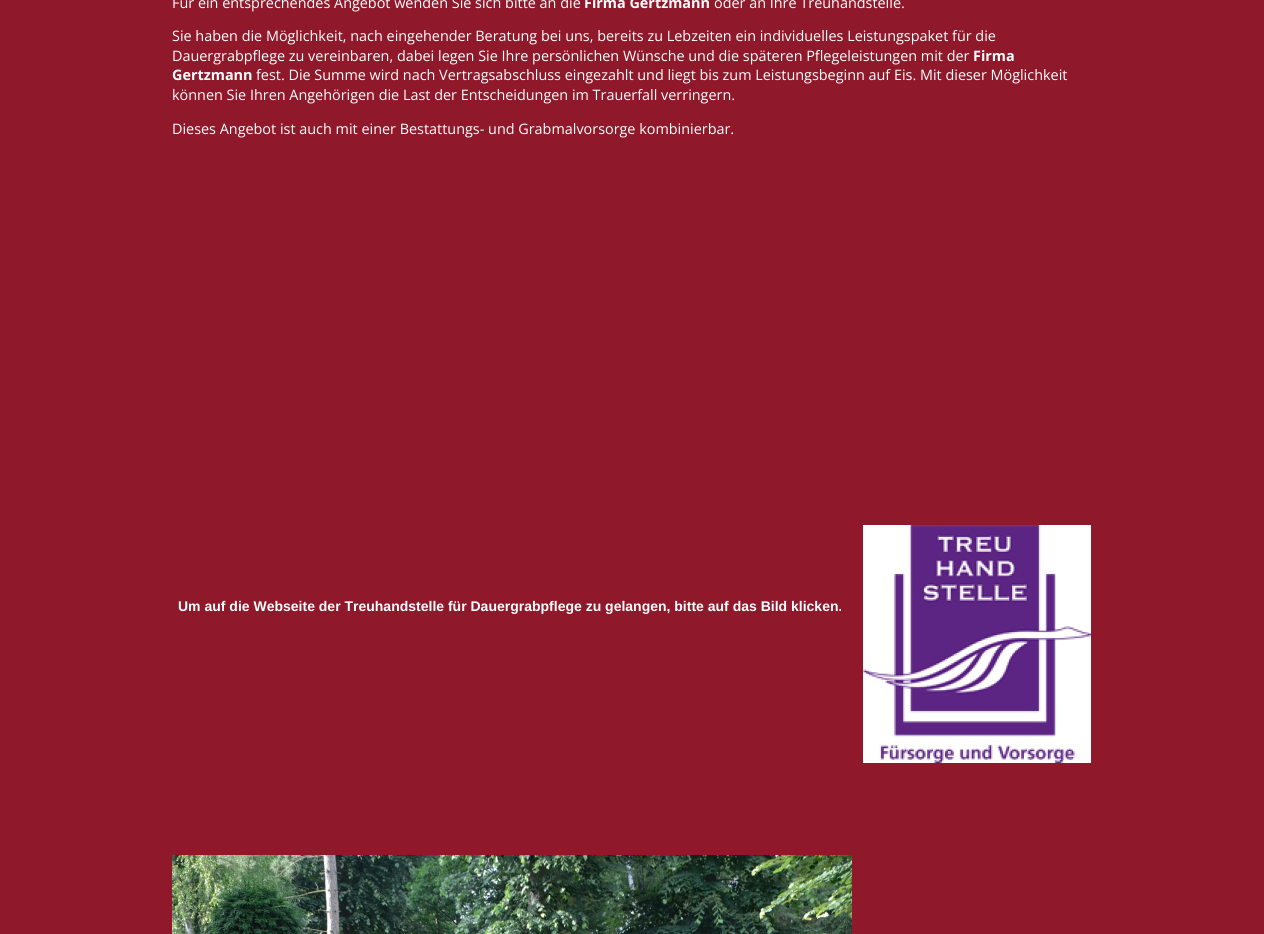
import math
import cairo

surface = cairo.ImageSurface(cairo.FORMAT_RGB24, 1264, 934)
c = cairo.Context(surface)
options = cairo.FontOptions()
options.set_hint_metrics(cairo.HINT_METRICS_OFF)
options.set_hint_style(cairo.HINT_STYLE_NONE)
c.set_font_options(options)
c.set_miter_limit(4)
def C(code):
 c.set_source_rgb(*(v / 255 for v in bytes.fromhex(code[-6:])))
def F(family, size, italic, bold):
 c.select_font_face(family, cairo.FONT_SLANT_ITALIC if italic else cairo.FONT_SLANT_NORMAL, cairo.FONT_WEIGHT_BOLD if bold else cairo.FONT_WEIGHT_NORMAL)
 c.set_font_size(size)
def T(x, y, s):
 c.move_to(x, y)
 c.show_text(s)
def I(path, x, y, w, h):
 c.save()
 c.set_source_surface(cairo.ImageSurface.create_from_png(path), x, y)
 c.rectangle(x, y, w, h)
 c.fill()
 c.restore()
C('8f192a')
c.paint()
F('Open Sans',14.4,0,0)
C('ffffff')
T(172,8,'Für ein entsprechendes Angebot wenden Sie sich bitte an die')
F('Open Sans',14.4,0,1)
T(584,8,'Firma Gertzmann')
F('Open Sans',14.4,0,0)
T(714,8,'oder an Ihre Treuhandstelle.')
T(172,41,'Sie haben die Möglichkeit, nach eingehender Beratung bei uns, bereits zu Lebzeiten ein individuelles Leistungspaket für die')
T(172,61,'Dauergrabpflege zu vereinbaren, dabei legen Sie Ihre persönlichen Wünsche und die späteren Pflegeleistungen mit der')
F('Open Sans',14.4,0,1)
T(973,61,'Firma')
T(172,80,'Gertzmann')
F('Open Sans',14.4,0,0)
T(256,80,'fest. Die Summe wird nach Vertragsabschluss eingezahlt und liegt bis zum Leistungsbeginn auf Eis. Mit dieser Möglichkeit')
T(172,100,'können Sie Ihren Angehörigen die Last der Entscheidungen im Trauerfall verringern.')
T(172,134,'Dieses Angebot ist auch mit einer Bestattungs- und Grabmalvorsorge kombinierbar.')
F('Liberation Sans',14,0,1)
T(178,611,'Um auf die Webseite der Treuhandstelle für Dauergrabpflege zu gelangen, bitte auf das Bild klicken.')
I('1.png',863,525,228,238)
I('2.png',172,855,680,79)
surface.write_to_png('o.png')
